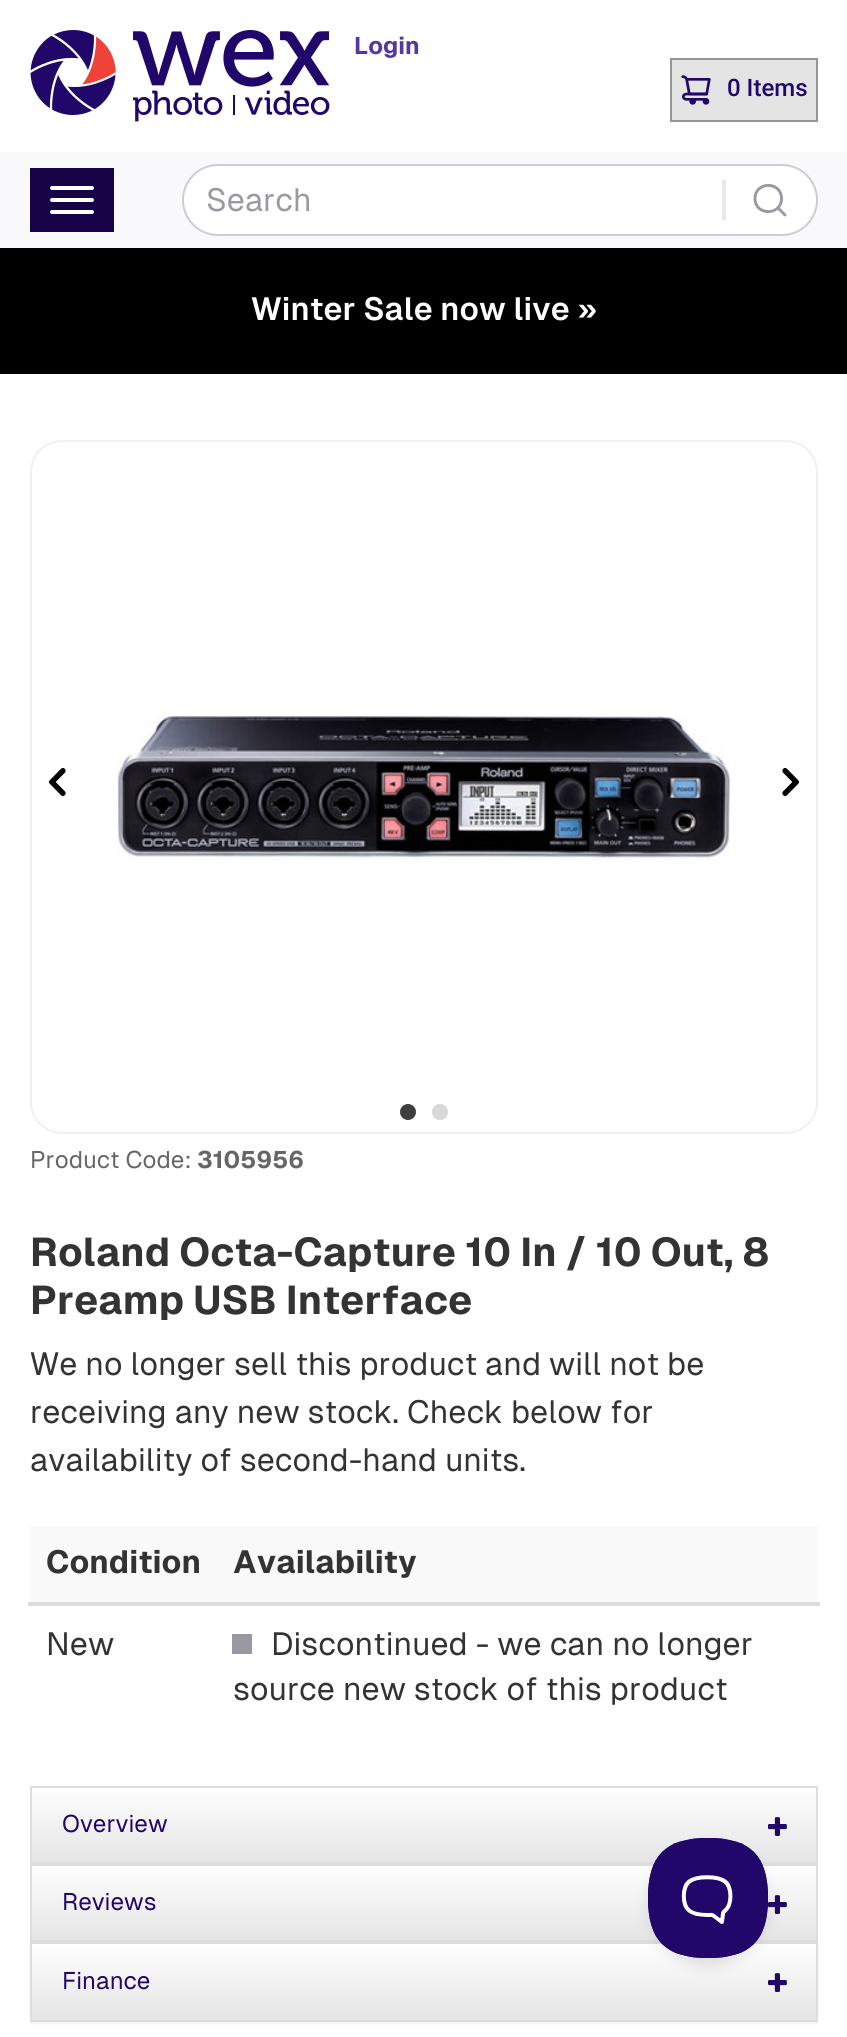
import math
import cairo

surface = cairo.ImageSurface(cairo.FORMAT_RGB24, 847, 2037)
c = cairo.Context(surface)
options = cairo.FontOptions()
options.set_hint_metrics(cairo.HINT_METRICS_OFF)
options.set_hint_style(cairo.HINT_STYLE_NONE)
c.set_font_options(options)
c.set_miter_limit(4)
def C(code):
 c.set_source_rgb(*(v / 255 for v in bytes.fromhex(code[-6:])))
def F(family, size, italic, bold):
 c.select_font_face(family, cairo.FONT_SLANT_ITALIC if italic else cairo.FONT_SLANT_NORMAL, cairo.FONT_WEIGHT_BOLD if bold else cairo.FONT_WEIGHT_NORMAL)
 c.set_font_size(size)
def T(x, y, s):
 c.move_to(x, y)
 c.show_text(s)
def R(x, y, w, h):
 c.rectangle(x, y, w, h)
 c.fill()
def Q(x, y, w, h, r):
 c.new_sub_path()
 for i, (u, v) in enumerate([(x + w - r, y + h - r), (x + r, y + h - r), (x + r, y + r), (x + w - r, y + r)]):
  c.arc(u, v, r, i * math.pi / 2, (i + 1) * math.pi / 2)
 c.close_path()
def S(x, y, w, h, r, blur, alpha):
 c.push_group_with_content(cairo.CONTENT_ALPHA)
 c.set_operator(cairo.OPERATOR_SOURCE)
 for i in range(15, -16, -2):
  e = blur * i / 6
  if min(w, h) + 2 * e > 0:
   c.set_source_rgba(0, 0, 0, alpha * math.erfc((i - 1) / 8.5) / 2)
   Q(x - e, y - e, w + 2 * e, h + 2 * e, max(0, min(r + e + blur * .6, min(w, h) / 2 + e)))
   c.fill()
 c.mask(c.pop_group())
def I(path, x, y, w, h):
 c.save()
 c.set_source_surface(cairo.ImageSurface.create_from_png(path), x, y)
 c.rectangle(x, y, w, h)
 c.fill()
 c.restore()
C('ffffff')
c.paint()
I('1.png',30,30,300,92)
F('Geist',24,0,1)
C('5636a3')
T(354,54,'Login')
C('f9f9fb')
R(0,152,847,96)
C('ffffff')
Q(183,165,634,70,35)
c.fill_preserve()
C('d0ccd6')
c.stroke()
F('Geist',32,0,0)
C('9a98a0')
T(206,211,'Search')
C('e9e6f0')
R(722,180,4,40)
c.new_path()
c.move_to(785,215)
c.line_to(778,208)
c.move_to(781.5,198.5)
c.curve_to(781.5,216,755,216,755,198.5)
c.curve_to(755,181,781.5,181,781.5,198.5)
c.close_path()
C('9a98a0')
c.set_line_width(2.9)
c.set_line_cap(cairo.LINE_CAP_ROUND)
c.set_line_join(cairo.LINE_JOIN_ROUND)
c.stroke()
C('e4e4e4')
c.rectangle(671,59,146,62)
c.fill_preserve()
C('959595')
c.set_line_width(2)
c.set_line_cap(cairo.LINE_CAP_BUTT)
c.set_line_join(cairo.LINE_JOIN_MITER)
c.stroke()
I('2.png',681,75,30,30)
F('Roboto Medium',24,0,0)
C('21076a')
T(727,96,'0 Items')
C('160446')
R(30,168,84,64)
C('ffffff')
Q(50,186,44,4,2)
c.fill()
Q(50,198,44,4,2)
c.fill()
Q(50,210,44,4,2)
c.fill()
C('000000')
R(0,248,847,126)
F('Geist SemiBold',32,0,0)
C('ffffff')
T(251,320,'Winter Sale now live »')
Q(31,441,786,692,31)
C('f0f0f0')
c.stroke()
I('3.png',49,768,17,28)
I('4.png',118,716,612,144)
I('5.png',782,768,17,28)
C('3e3e3e')
c.arc(408,1112,8,0,2 * math.pi)
c.fill()
C('d9d9d9')
c.arc(440,1112,8,0,2 * math.pi)
c.fill()
F('Geist',24,0,0)
C('666666')
T(30,1168,'Product Code:')
F('Geist',24,0,1)
T(197,1168,'3105956')
F('Geist',40,0,1)
C('333333')
T(30,1266,'Roland Octa-Capture 10 In / 10 Out, 8')
T(30,1314,'Preamp USB Interface')
F('Geist',32,0,0)
T(30,1375,'We no longer sell this product and will not be')
T(30,1423,'receiving any new stock. Check below for')
T(30,1471,'availability of second-hand units.')
C('f9f9f9')
R(30,1526,788,76)
F('Geist',32,0,1)
C('333333')
T(46,1573,'Condition')
C('dddddd')
R(28,1602,792,4)
C('333333')
T(233,1573,'Availability')
F('Geist',32,0,0)
T(46,1655,'New')
C('9a98a0')
R(232,1634,20,20)
C('333333')
T(271,1655,'Discontinued - we can no longer')
T(233,1700,'source new stock of this product')
c.rectangle(31,1787,786,76)
C('dddddd')
c.stroke()
gradient = cairo.LinearGradient(424,1788,424,1862)
gradient.add_color_stop_rgba(0,0.996,0.996,0.996,1)
gradient.add_color_stop_rgba(1,0.898,0.898,0.898,1)
c.set_source(gradient)
R(32,1792,784,70)
F('Geist',24,0,0)
C('21076a')
T(62,1832,'Overview')
I('6.png',768,1817,19,19)
c.rectangle(31,1865,786,76)
C('dddddd')
c.stroke()
gradient = cairo.LinearGradient(424,1866,424,1940)
gradient.add_color_stop_rgba(0,0.996,0.996,0.996,1)
gradient.add_color_stop_rgba(1,0.898,0.898,0.898,1)
c.set_source(gradient)
R(32,1870,784,70)
C('21076a')
T(62,1910,'Reviews')
I('6.png',768,1895,19,19)
C('000000')
S(30,1944,788,80,0,1,.05)
c.rectangle(31,1943,786,78)
C('dddddd')
c.stroke()
gradient = cairo.LinearGradient(424,1944,424,2020)
gradient.add_color_stop_rgba(0,0.996,0.996,0.996,1)
gradient.add_color_stop_rgba(1,0.898,0.898,0.898,1)
c.set_source(gradient)
R(32,1944,784,76)
C('21076a')
T(62,1989,'Finance')
I('7.png',768,1973,19,19)
C('000000')
S(648,1846,120,120,60,7,.1)
I('8.png',648,1838,120,120)
surface.write_to_png('o.png')
